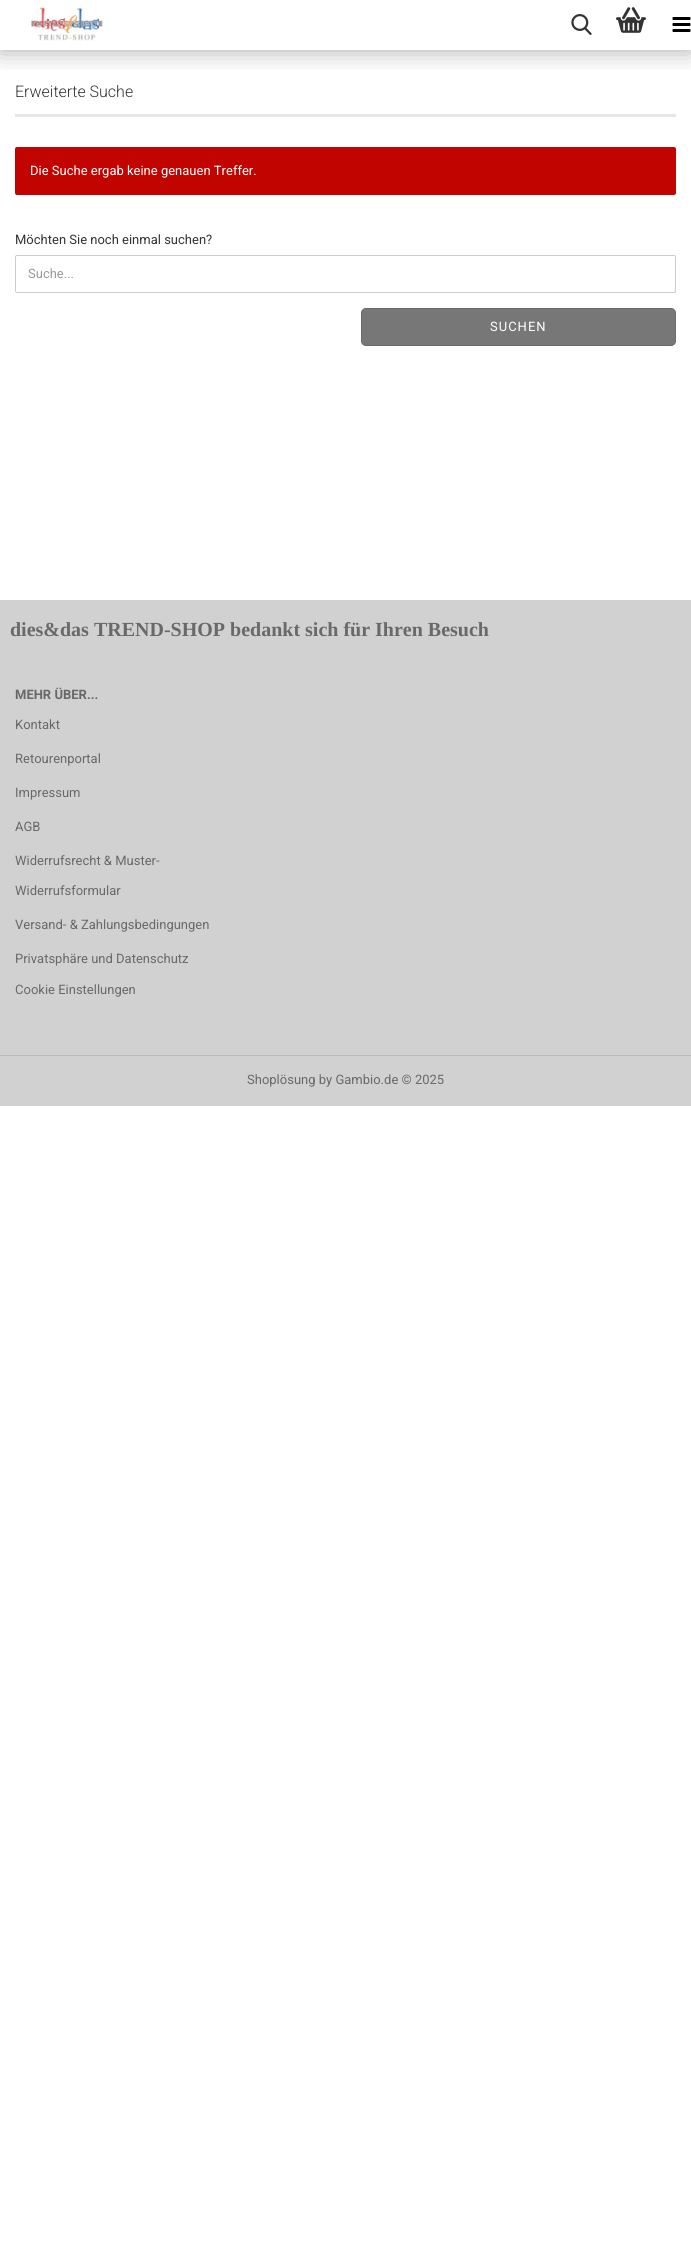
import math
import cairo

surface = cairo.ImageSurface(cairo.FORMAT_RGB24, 691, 2267)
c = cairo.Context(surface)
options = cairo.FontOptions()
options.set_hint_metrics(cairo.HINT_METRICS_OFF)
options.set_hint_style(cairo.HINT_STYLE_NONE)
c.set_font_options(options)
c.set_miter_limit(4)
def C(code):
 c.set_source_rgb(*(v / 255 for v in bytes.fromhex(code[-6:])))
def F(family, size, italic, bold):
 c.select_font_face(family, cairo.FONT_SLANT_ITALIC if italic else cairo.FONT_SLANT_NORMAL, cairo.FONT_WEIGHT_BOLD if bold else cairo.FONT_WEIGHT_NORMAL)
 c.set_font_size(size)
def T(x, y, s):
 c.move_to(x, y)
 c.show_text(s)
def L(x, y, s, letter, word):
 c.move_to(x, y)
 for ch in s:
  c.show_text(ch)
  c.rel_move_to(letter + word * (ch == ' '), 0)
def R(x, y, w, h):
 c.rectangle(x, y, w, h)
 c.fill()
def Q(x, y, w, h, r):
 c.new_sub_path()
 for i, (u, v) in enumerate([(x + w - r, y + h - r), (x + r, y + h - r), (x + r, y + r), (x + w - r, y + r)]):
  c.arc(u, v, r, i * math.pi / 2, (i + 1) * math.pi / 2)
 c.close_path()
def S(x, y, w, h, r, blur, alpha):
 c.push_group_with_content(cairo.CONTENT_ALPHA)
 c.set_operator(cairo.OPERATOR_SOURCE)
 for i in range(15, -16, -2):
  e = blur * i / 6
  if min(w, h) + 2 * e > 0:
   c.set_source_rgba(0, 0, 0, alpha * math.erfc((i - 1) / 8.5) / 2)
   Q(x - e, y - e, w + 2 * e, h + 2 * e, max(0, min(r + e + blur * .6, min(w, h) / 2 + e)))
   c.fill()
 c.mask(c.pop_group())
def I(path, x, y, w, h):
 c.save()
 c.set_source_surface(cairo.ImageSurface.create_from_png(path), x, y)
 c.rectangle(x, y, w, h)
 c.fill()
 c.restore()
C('ffffff')
c.paint()
c.save()
c.rectangle(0,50,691,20)
c.clip()
C('000000')
S(0,0,691,50,0,12.5,.35)
c.restore()
I('1.png',31,7,72,34)
I('2.png',571,14,21,21)
I('3.png',616,7,30,26)
I('4.png',672,17,19,15)
C('e7e7e7')
R(15,114,661,3)
F('Roboto Light',16,0,0)
C('333333')
T(15,97,'Erweiterte Suche')
C('c20400')
Q(15,147,661,48,2)
c.fill()
F('Roboto',13,0,0)
C('ffffff')
T(30,175,'Die Suche ergab keine genauen Treffer.')
C('333333')
T(15,244,'Möchten Sie noch einmal suchen?')
Q(15.5,255.5,660,37,1.5)
C('cccccc')
c.set_line_width(1)
c.stroke()
C('999999')
T(28,278,'Suche...')
C('777777')
Q(361.5,308.5,314,37,4.5)
c.fill_preserve()
C('6a6a6a')
c.stroke()
C('ffffff')
L(490,331,'SUCHEN',1,0)
C('d1d1d1')
R(0,600,691,506)
F('Liberation Serif',20,0,1)
C('696969')
T(10,636,'dies&das TREND-SHOP bedankt sich für Ihren Besuch')
C('bbbbbb')
R(0,1055,691,1)
F('Roboto',13,0,1)
C('696969')
T(15,699,'MEHR ÜBER...')
F('Roboto',13,0,0)
T(15,729,'Kontakt')
T(15,763,'Retourenportal')
T(15,797,'Impressum')
T(15,831,'AGB')
T(15,865,'Widerrufsrecht & Muster-')
T(15,895,'Widerrufsformular')
T(15,929,'Versand- & Zahlungsbedingungen')
T(15,963,'Privatsphäre und Datenschutz')
T(15,994,'Cookie Einstellungen')
T(247,1084,'Shoplösung by Gambio.de © 2025')
surface.write_to_png('o.png')
